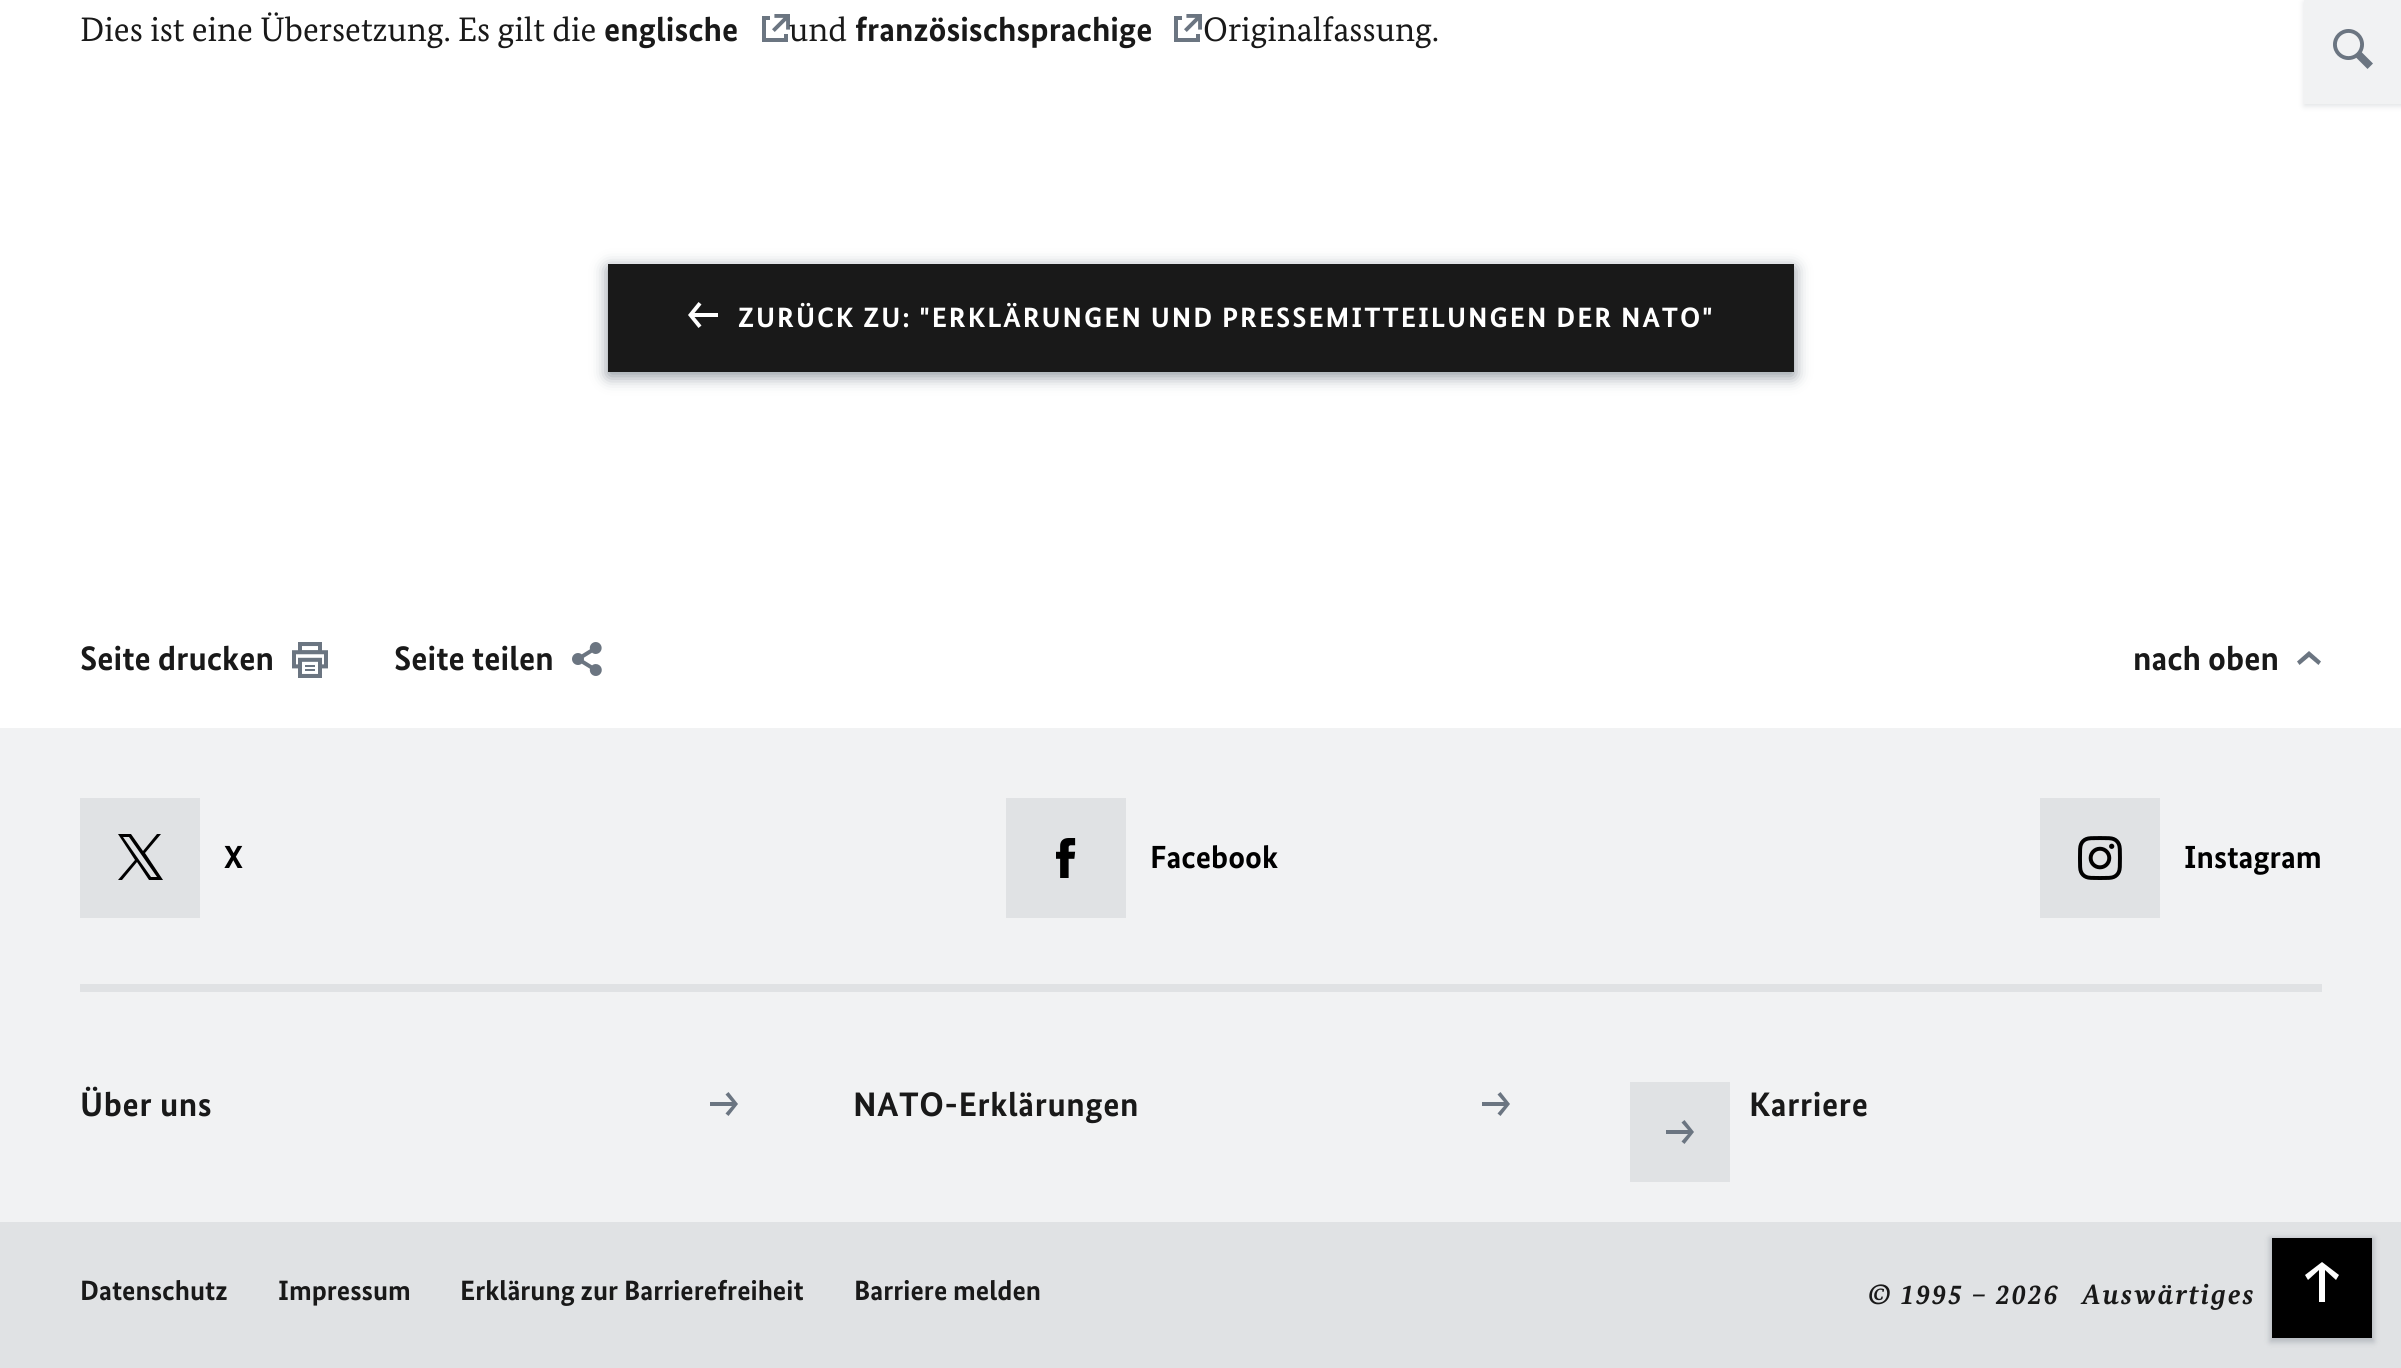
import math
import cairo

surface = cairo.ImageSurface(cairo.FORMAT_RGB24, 2401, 1368)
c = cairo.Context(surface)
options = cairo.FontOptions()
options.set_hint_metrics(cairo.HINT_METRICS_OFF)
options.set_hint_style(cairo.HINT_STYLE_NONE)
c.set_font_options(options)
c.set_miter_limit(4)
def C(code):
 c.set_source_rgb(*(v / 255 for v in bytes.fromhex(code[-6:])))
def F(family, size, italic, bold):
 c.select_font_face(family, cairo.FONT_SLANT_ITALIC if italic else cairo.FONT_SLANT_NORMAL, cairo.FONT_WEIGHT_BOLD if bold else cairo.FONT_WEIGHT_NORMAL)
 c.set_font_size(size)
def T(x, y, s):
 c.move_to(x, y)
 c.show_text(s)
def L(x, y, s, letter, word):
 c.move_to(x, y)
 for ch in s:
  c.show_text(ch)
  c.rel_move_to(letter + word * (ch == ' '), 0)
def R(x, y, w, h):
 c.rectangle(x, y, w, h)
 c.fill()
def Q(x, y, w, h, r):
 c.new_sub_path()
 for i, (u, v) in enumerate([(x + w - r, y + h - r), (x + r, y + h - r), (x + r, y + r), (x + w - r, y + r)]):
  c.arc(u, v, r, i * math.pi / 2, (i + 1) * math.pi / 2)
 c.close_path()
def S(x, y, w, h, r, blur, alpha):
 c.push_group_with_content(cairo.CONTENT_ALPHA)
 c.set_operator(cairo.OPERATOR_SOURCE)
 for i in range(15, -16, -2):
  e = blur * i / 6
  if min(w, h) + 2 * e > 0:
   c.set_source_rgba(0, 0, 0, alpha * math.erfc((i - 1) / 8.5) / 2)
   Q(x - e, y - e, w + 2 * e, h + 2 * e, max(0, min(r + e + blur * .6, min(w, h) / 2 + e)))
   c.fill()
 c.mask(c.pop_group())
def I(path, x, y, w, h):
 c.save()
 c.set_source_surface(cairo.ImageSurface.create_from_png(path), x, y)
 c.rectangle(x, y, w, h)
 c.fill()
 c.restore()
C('ffffff')
c.paint()
F('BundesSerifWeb',34,0,0)
C('191919')
T(80,41,'Dies ist eine Übersetzung. Es gilt die')
F('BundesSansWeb',34,0,1)
T(604,41,'englische')
I('1.png',762,14,28,28)
F('BundesSerifWeb',34,0,0)
T(789,41,'und')
F('BundesSansWeb',34,0,1)
T(855,41,'französischsprachige')
I('1.png',1174,14,28,28)
F('BundesSerifWeb',34,0,0)
T(1203,41,'Originalfassung.')
C('89919a')
S(608,268,1186,108,0,8,1)
C('191919')
R(608,264,1186,108)
C('ffffff')
c.new_path()
c.move_to(698.5,302)
c.line_to(701.5,304.5)
c.line_to(694.5,313)
c.line_to(718,313)
c.line_to(718,317)
c.line_to(694.5,317)
c.line_to(701.5,325.5)
c.line_to(698.5,328)
c.line_to(688,315)
c.fill()
F('BundesSansWeb',28,0,1)
L(738,327,'ZURÜCK ZU: "ERKLÄRUNGEN UND PRESSEMITTEILUNGEN DER NATO"',2,0)
F('BundesSansWeb',34,0,1)
C('191919')
T(80,670,'Seite drucken')
I('2.png',292,642,36,36)
T(394,670,'Seite teilen')
I('3.png',572,642,30,34)
T(2133,670,'nach oben')
C('6b7581')
c.new_path()
c.move_to(2309,657)
c.line_to(2318.5,665)
c.line_to(2321,661.5)
c.line_to(2309,651)
c.line_to(2297,661.5)
c.line_to(2299.5,665)
c.fill()
C('f1f2f3')
R(0,728,2401,494)
C('e0e2e4')
R(80,798,120,120)
C('000000')
c.new_path()
c.move_to(145,853)
c.line_to(161,834)
c.line_to(157,834)
c.line_to(143,851)
c.line_to(131,834)
c.line_to(118,834)
c.line_to(135,860)
c.line_to(118,880)
c.line_to(122,880)
c.line_to(137,862)
c.line_to(149,880)
c.line_to(163,880)
c.close_path()
c.move_to(139,860)
c.line_to(123,837)
c.line_to(129,837)
c.line_to(157,877)
c.line_to(151,877)
c.close_path()
c.fill()
F('BundesSansWeb',32,0,1)
T(224,868,'X')
C('e0e2e4')
R(1006,798,120,120)
I('4.png',1056,838,20,40)
C('000000')
T(1150,868,'Facebook')
C('e0e2e4')
R(2040,798,120,120)
I('5.png',2078,836,44,44)
C('000000')
T(2184,868,'Instagram')
C('e0e2e4')
R(80,984,2242,8)
F('BundesSansWeb',34,0,1)
C('191919')
L(80,1116,'Über uns',.6,0)
C('6b7581')
c.set_fill_rule(cairo.FILL_RULE_EVEN_ODD)
c.new_path()
c.move_to(728.5,1092)
c.line_to(725.5,1094.5)
c.line_to(732,1102)
c.line_to(710,1102)
c.line_to(710,1106)
c.line_to(732,1106)
c.line_to(725.5,1113.5)
c.line_to(728.5,1116)
c.line_to(738,1104)
c.close_path()
c.fill()
C('191919')
L(853,1116,'NATO-Erklärungen',.6,0)
C('6b7581')
c.new_path()
c.move_to(1500.5,1092)
c.line_to(1497.5,1094.5)
c.line_to(1504,1102)
c.line_to(1482,1102)
c.line_to(1482,1106)
c.line_to(1504,1106)
c.line_to(1497.5,1113.5)
c.line_to(1500.5,1116)
c.line_to(1510,1104)
c.close_path()
c.fill()
C('e0e2e4')
R(1630,1082,100,100)
C('6b7581')
c.new_path()
c.move_to(1684.5,1120)
c.line_to(1681.5,1122.5)
c.line_to(1688,1130)
c.line_to(1666,1130)
c.line_to(1666,1134)
c.line_to(1688,1134)
c.line_to(1681.5,1141.5)
c.line_to(1684.5,1144)
c.line_to(1694,1132)
c.close_path()
c.fill()
C('191919')
L(1749,1116,'Karriere',.6,0)
C('e0e2e4')
R(0,1222,2401,146)
F('BundesSansWeb',28,0,1)
C('191919')
T(80,1300,'Datenschutz')
T(278,1300,'Impressum')
T(460,1300,'Erklärung zur Barrierefreiheit')
T(854,1300,'Barriere melden')
F('BundesSerifWeb',28,1,1)
L(1868,1304,'© 1995 – 2026   Auswärtiges',2,0)
C('e0e2e4')
S(2304,2,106,104,0,3,1)
C('f1f2f3')
R(2304,0,97,104)
I('6.png',2333,29,40,40)
C('89919a')
S(2270,1238,104,104,0,3,.5)
C('000000')
R(2272,1238,100,100)
C('ffffff')
c.new_path()
c.move_to(2305,1275)
c.line_to(2308,1280)
c.line_to(2319,1270)
c.line_to(2319,1302)
c.line_to(2325,1302)
c.line_to(2325,1270)
c.line_to(2336,1280)
c.line_to(2339,1275)
c.line_to(2322,1262)
c.close_path()
c.fill()
surface.write_to_png('o.png')
